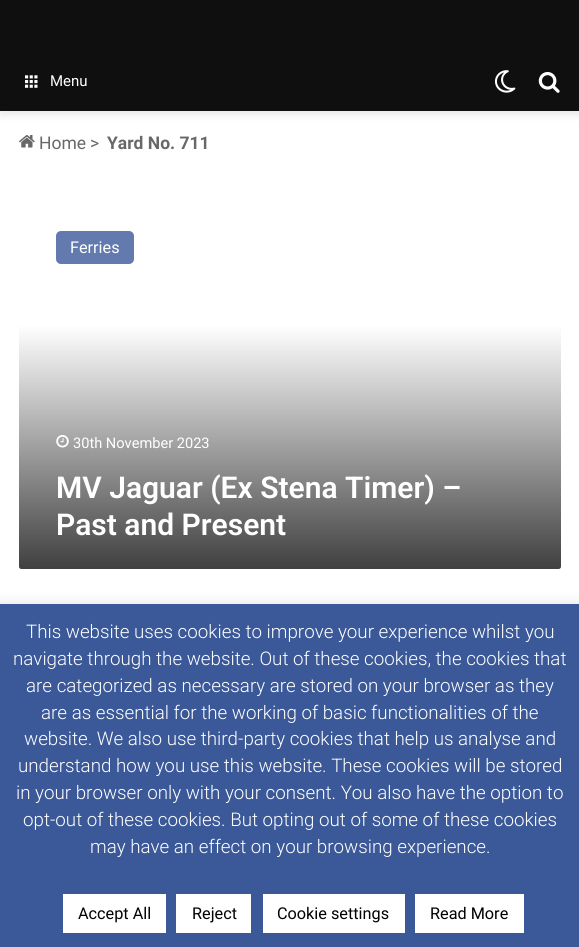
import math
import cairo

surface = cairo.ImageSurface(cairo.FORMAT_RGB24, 579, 947)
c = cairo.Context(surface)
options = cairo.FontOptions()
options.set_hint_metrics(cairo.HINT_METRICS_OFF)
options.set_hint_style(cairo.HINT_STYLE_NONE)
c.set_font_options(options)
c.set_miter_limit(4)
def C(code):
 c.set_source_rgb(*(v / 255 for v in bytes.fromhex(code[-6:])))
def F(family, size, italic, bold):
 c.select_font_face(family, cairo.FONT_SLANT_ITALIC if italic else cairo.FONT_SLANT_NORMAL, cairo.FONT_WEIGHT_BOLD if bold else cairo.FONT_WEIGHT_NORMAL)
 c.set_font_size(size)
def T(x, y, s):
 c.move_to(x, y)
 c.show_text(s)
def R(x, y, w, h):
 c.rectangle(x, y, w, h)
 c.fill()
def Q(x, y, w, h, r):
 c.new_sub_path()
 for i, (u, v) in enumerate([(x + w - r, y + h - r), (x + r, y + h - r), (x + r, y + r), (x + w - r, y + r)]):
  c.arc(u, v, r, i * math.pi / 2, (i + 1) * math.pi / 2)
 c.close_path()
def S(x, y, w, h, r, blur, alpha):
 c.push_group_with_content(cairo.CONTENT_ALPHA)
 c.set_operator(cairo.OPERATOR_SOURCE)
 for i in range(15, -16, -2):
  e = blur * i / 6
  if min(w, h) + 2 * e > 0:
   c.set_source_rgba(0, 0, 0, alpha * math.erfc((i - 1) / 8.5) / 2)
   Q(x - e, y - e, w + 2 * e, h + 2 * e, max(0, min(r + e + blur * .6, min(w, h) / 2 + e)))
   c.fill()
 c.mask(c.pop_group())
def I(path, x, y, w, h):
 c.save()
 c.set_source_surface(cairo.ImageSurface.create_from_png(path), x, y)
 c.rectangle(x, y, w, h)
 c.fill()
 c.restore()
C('ffffff')
c.paint()
C('000000')
S(0,4,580,111,0,4.5,.1)
C('0f0f0f')
R(0,0,579,111)
I('1.png',25,75,13,13)
F('Roboto',15,0,0)
C('ffffff')
T(50,86,'Menu')
I('2.png',494,70,22,23)
I('3.png',538,72,22,21)
I('4.png',19,135,16,13)
F('Roboto',17.5,0,0)
C('686868')
T(39,149,'Home')
T(90,149,'>')
F('Roboto',17.5,0,1)
T(107,149,'Yard No. 711')
C('627aad')
Q(56,231,78,33,5)
c.fill()
F('Roboto',16.25,0,0)
C('ffffff')
T(70,253,'Ferries')
gradient = cairo.LinearGradient(290,325,290,569)
gradient.add_color_stop_rgba(0,1,1,1,1)
gradient.add_color_stop_rgba(1,0.251,0.251,0.251,1)
c.set_source(gradient)
c.new_path()
c.move_to(19,325)
c.line_to(561,325)
c.line_to(561,566.5)
c.curve_to(561,568,560,569,558.5,569)
c.line_to(21.5,569)
c.curve_to(20,569,19,568,19,566.5)
c.close_path()
c.fill()
I('5.png',56,435,13,13)
F('Roboto',14.6,0,0)
C('ffffff')
T(73,448,'30th November 2023')
F('Roboto SemiBold',30,0,0)
T(56,498,'MV Jaguar (Ex Stena Timer) –')
T(56,535,'Past and Present')
C('acabab')
S(0,603,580,343,0,6,.3)
C('3b5998')
R(0,604,579,343)
F('Roboto Light',18.75,0,0)
C('ffffff')
T(26,638,'This website uses cookies to improve your experience whilst you')
T(13,665,'navigate through the website. Out of these cookies, the cookies that')
T(26,692,'are categorized as necessary are stored on your browser as they')
T(41,719,'are as essential for the working of basic functionalities of the')
T(24,745,'website. We also use third-party cookies that help us analyse and')
T(18,772,'understand how you use this website. These cookies will be stored')
T(16,799,'in your browser only with your consent. You also have the option to')
T(23,826,'opt-out of these cookies. But opting out of some of these cookies')
T(90,853,'may have an effect on your browsing experience.')
R(63,894,103,39)
F('Roboto',16.25,0,0)
C('000000')
T(78,919,'Accept All')
C('ffffff')
R(176,894,75,39)
C('000000')
T(192,919,'Reject')
C('ffffff')
R(263,894,142,39)
C('000000')
T(277,919,'Cookie settings')
C('ffffff')
R(415,894,109,39)
C('000000')
T(430,919,'Read More')
surface.write_to_png('o.png')
